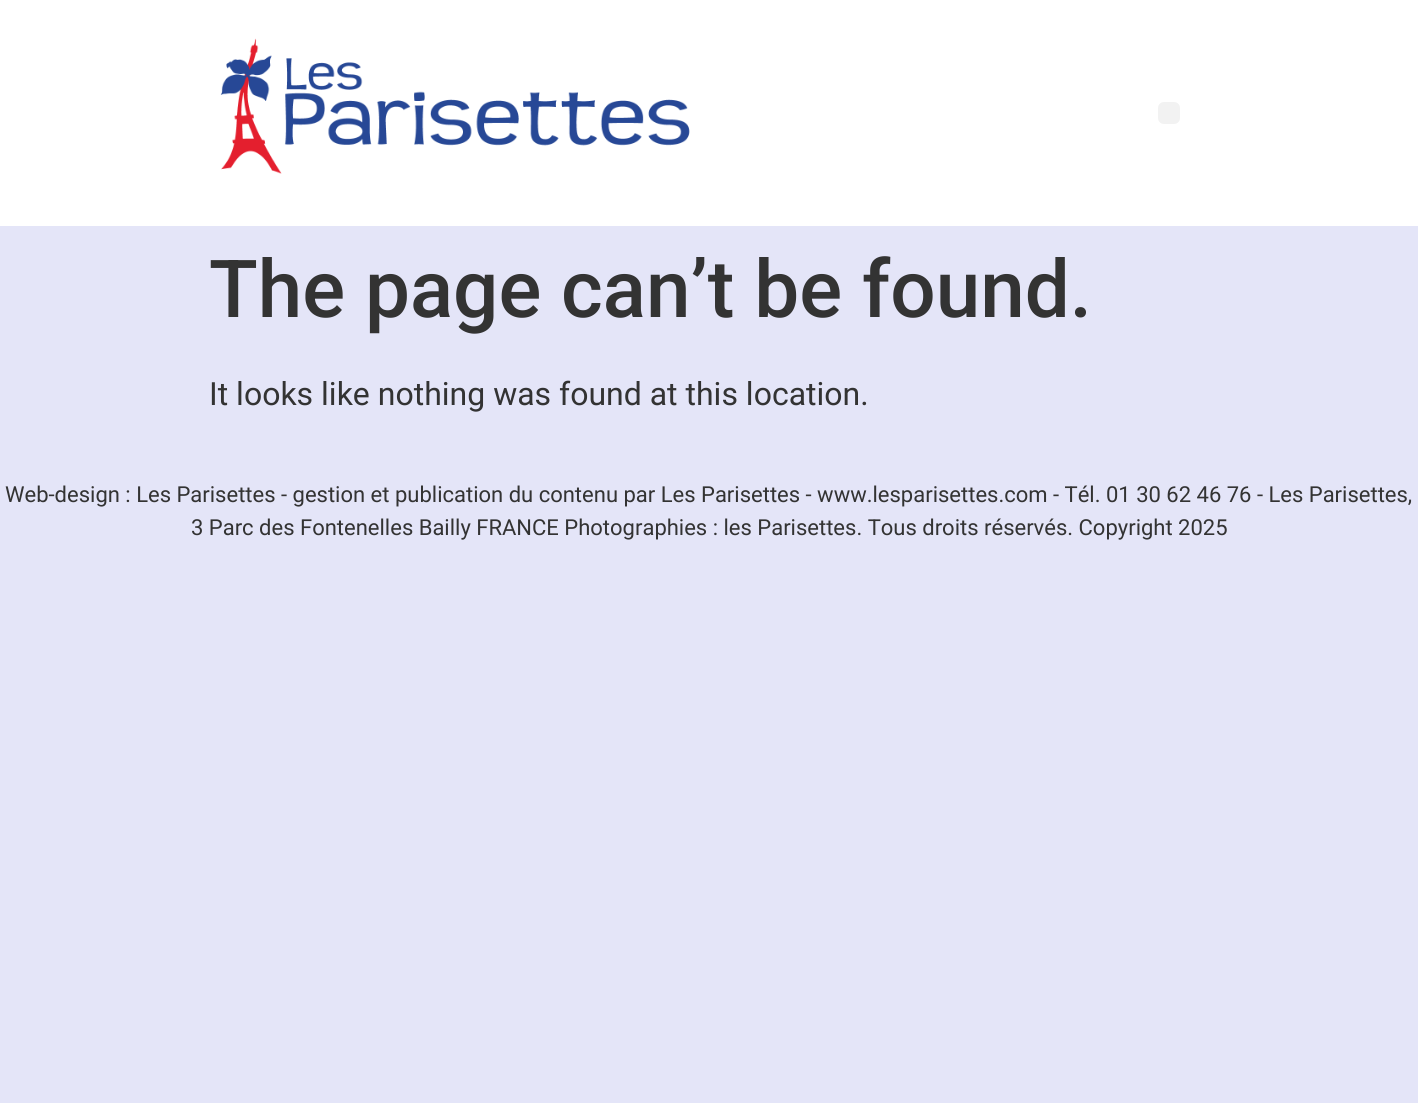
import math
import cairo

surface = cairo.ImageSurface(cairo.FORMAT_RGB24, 1418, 1103)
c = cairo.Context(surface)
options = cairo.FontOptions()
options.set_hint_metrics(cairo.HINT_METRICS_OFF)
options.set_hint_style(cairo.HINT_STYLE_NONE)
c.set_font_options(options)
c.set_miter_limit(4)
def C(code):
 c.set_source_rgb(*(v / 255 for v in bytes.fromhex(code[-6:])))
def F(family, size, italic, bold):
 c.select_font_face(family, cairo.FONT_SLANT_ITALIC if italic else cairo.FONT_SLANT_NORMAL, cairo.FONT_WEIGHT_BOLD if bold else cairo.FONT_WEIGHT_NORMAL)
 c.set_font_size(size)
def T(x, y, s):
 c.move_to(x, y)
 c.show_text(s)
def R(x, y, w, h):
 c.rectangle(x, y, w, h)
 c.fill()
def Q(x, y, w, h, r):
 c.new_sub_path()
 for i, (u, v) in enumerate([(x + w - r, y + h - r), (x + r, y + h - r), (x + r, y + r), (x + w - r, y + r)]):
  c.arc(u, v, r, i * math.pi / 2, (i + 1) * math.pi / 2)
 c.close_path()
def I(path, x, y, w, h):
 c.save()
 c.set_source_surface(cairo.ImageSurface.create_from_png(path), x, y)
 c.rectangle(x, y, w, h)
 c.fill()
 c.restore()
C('e4e5f8')
c.paint()
C('ffffff')
R(0,0,1418,226)
I('1.png',220,38,470,136)
C('f2f2f2')
Q(1158,102,22,22,6)
c.fill()
F('Roboto Medium',80,0,0)
C('333333')
T(209,317,'The page can’t be found.')
F('Roboto',32,0,0)
T(209,405,'It looks like nothing was found at this location.')
F('Roboto',22,0,0)
T(5,502,'Web-design : Les Parisettes - gestion et publication du contenu par Les Parisettes - www.lesparisettes.com - Tél. 01 30 62 46 76 - Les Parisettes,')
T(191,535,'3 Parc des Fontenelles Bailly FRANCE Photographies : les Parisettes. Tous droits réservés. Copyright 2025')
surface.write_to_png('o.png')
